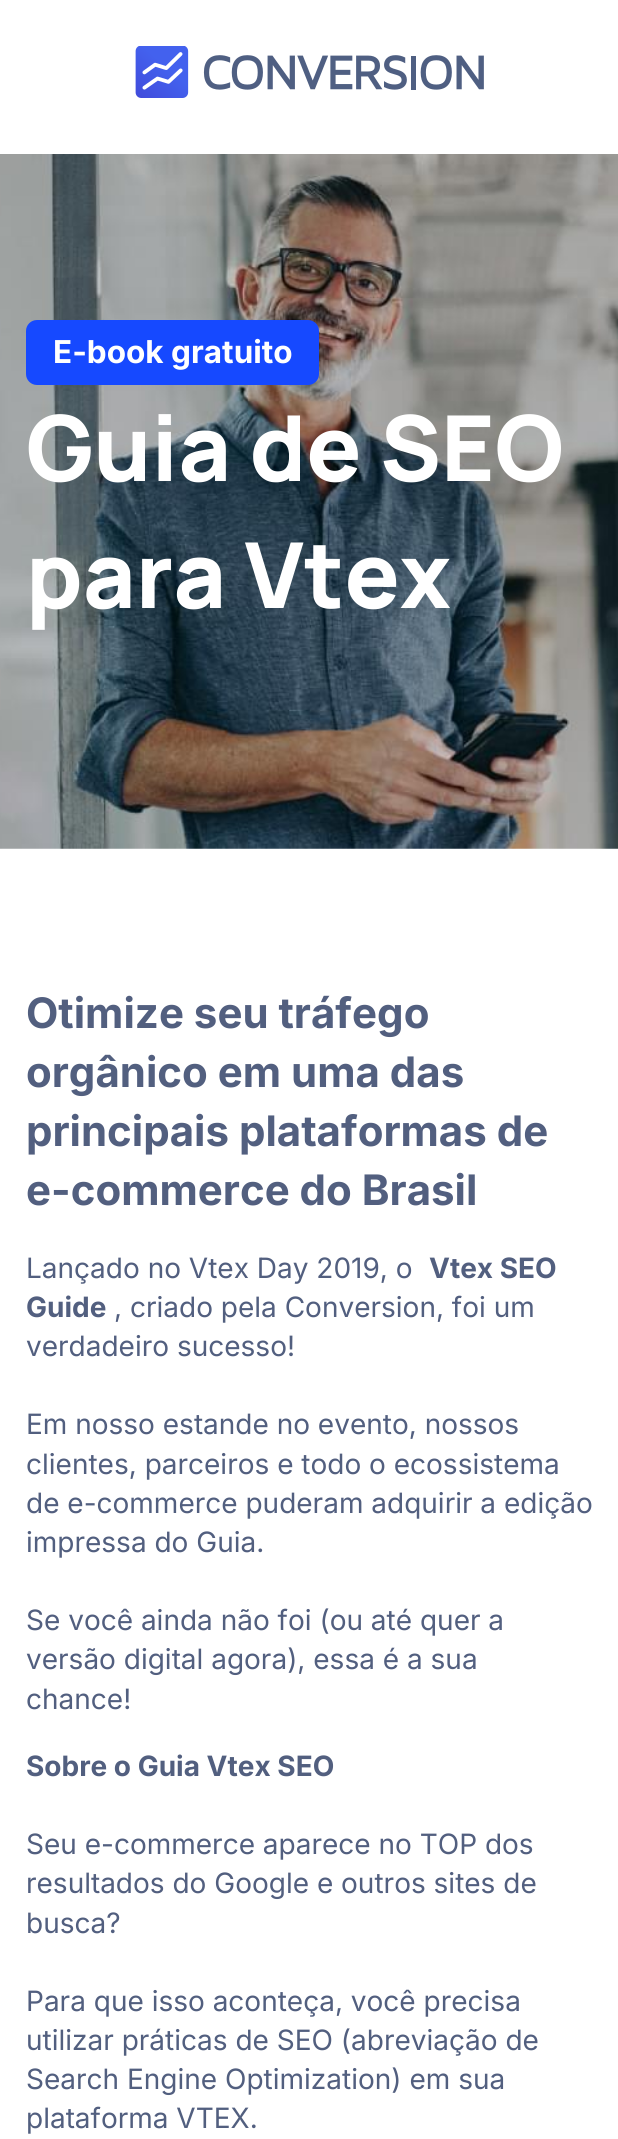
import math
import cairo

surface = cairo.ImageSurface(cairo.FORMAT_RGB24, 618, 2139)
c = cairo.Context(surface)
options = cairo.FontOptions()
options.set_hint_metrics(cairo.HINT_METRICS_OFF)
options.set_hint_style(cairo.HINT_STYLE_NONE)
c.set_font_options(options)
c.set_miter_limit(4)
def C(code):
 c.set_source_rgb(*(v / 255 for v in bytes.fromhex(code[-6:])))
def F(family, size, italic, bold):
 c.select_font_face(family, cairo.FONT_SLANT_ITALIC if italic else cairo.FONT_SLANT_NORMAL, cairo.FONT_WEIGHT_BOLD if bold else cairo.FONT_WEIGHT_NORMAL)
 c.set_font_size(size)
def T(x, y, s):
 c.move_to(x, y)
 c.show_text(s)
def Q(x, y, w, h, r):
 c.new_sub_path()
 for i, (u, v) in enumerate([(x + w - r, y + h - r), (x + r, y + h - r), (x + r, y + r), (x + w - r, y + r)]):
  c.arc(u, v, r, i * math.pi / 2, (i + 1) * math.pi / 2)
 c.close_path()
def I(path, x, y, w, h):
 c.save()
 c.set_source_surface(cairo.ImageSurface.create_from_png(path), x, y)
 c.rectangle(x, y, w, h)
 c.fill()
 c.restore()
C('ffffff')
c.paint()
I('1.png',135,46,349,52)
I('2.png',0,154,618,695)
C('1649ff')
Q(26,320,293,65,11)
c.fill()
F('Inter',31.5,0,1)
C('ffffff')
T(53,363,'E-book gratuito')
F('Manrope ExtraLight',91,0,0)
T(26,481,'Guia de SEO')
T(26,608,'para Vtex')
F('Inter',42,0,1)
C('525f7f')
T(26,1028,'Otimize seu tráfego')
T(26,1087,'orgânico em uma das')
T(26,1146,'principais plataformas de')
T(26,1205,'e-commerce do Brasil')
F('Inter',28,0,0)
T(26,1278,'Lançado no Vtex Day 2019, o')
F('Inter',28,0,1)
T(429,1278,'Vtex SEO')
T(26,1317,'Guide')
F('Inter',28,0,0)
T(114,1317,', criado pela Conversion, foi um')
T(26,1356,'verdadeiro sucesso!')
T(26,1434,'Em nosso estande no evento, nossos')
T(26,1474,'clientes, parceiros e todo o ecossistema')
T(26,1513,'de e-commerce puderam adquirir a edição')
T(26,1552,'impressa do Guia.')
T(26,1630,'Se você ainda não foi (ou até quer a')
T(26,1669,'versão digital agora), essa é a sua')
T(26,1709,'chance!')
F('Inter',28,0,1)
T(26,1776,'Sobre o Guia Vtex SEO')
F('Inter',28,0,0)
T(26,1854,'Seu e-commerce aparece no TOP dos')
T(26,1893,'resultados do Google e outros sites de')
T(26,1933,'busca?')
T(26,2011,'Para que isso aconteça, você precisa')
T(26,2050,'utilizar práticas de SEO (abreviação de')
T(26,2089,'Search Engine Optimization) em sua')
T(26,2128,'plataforma VTEX.')
surface.write_to_png('o.png')
